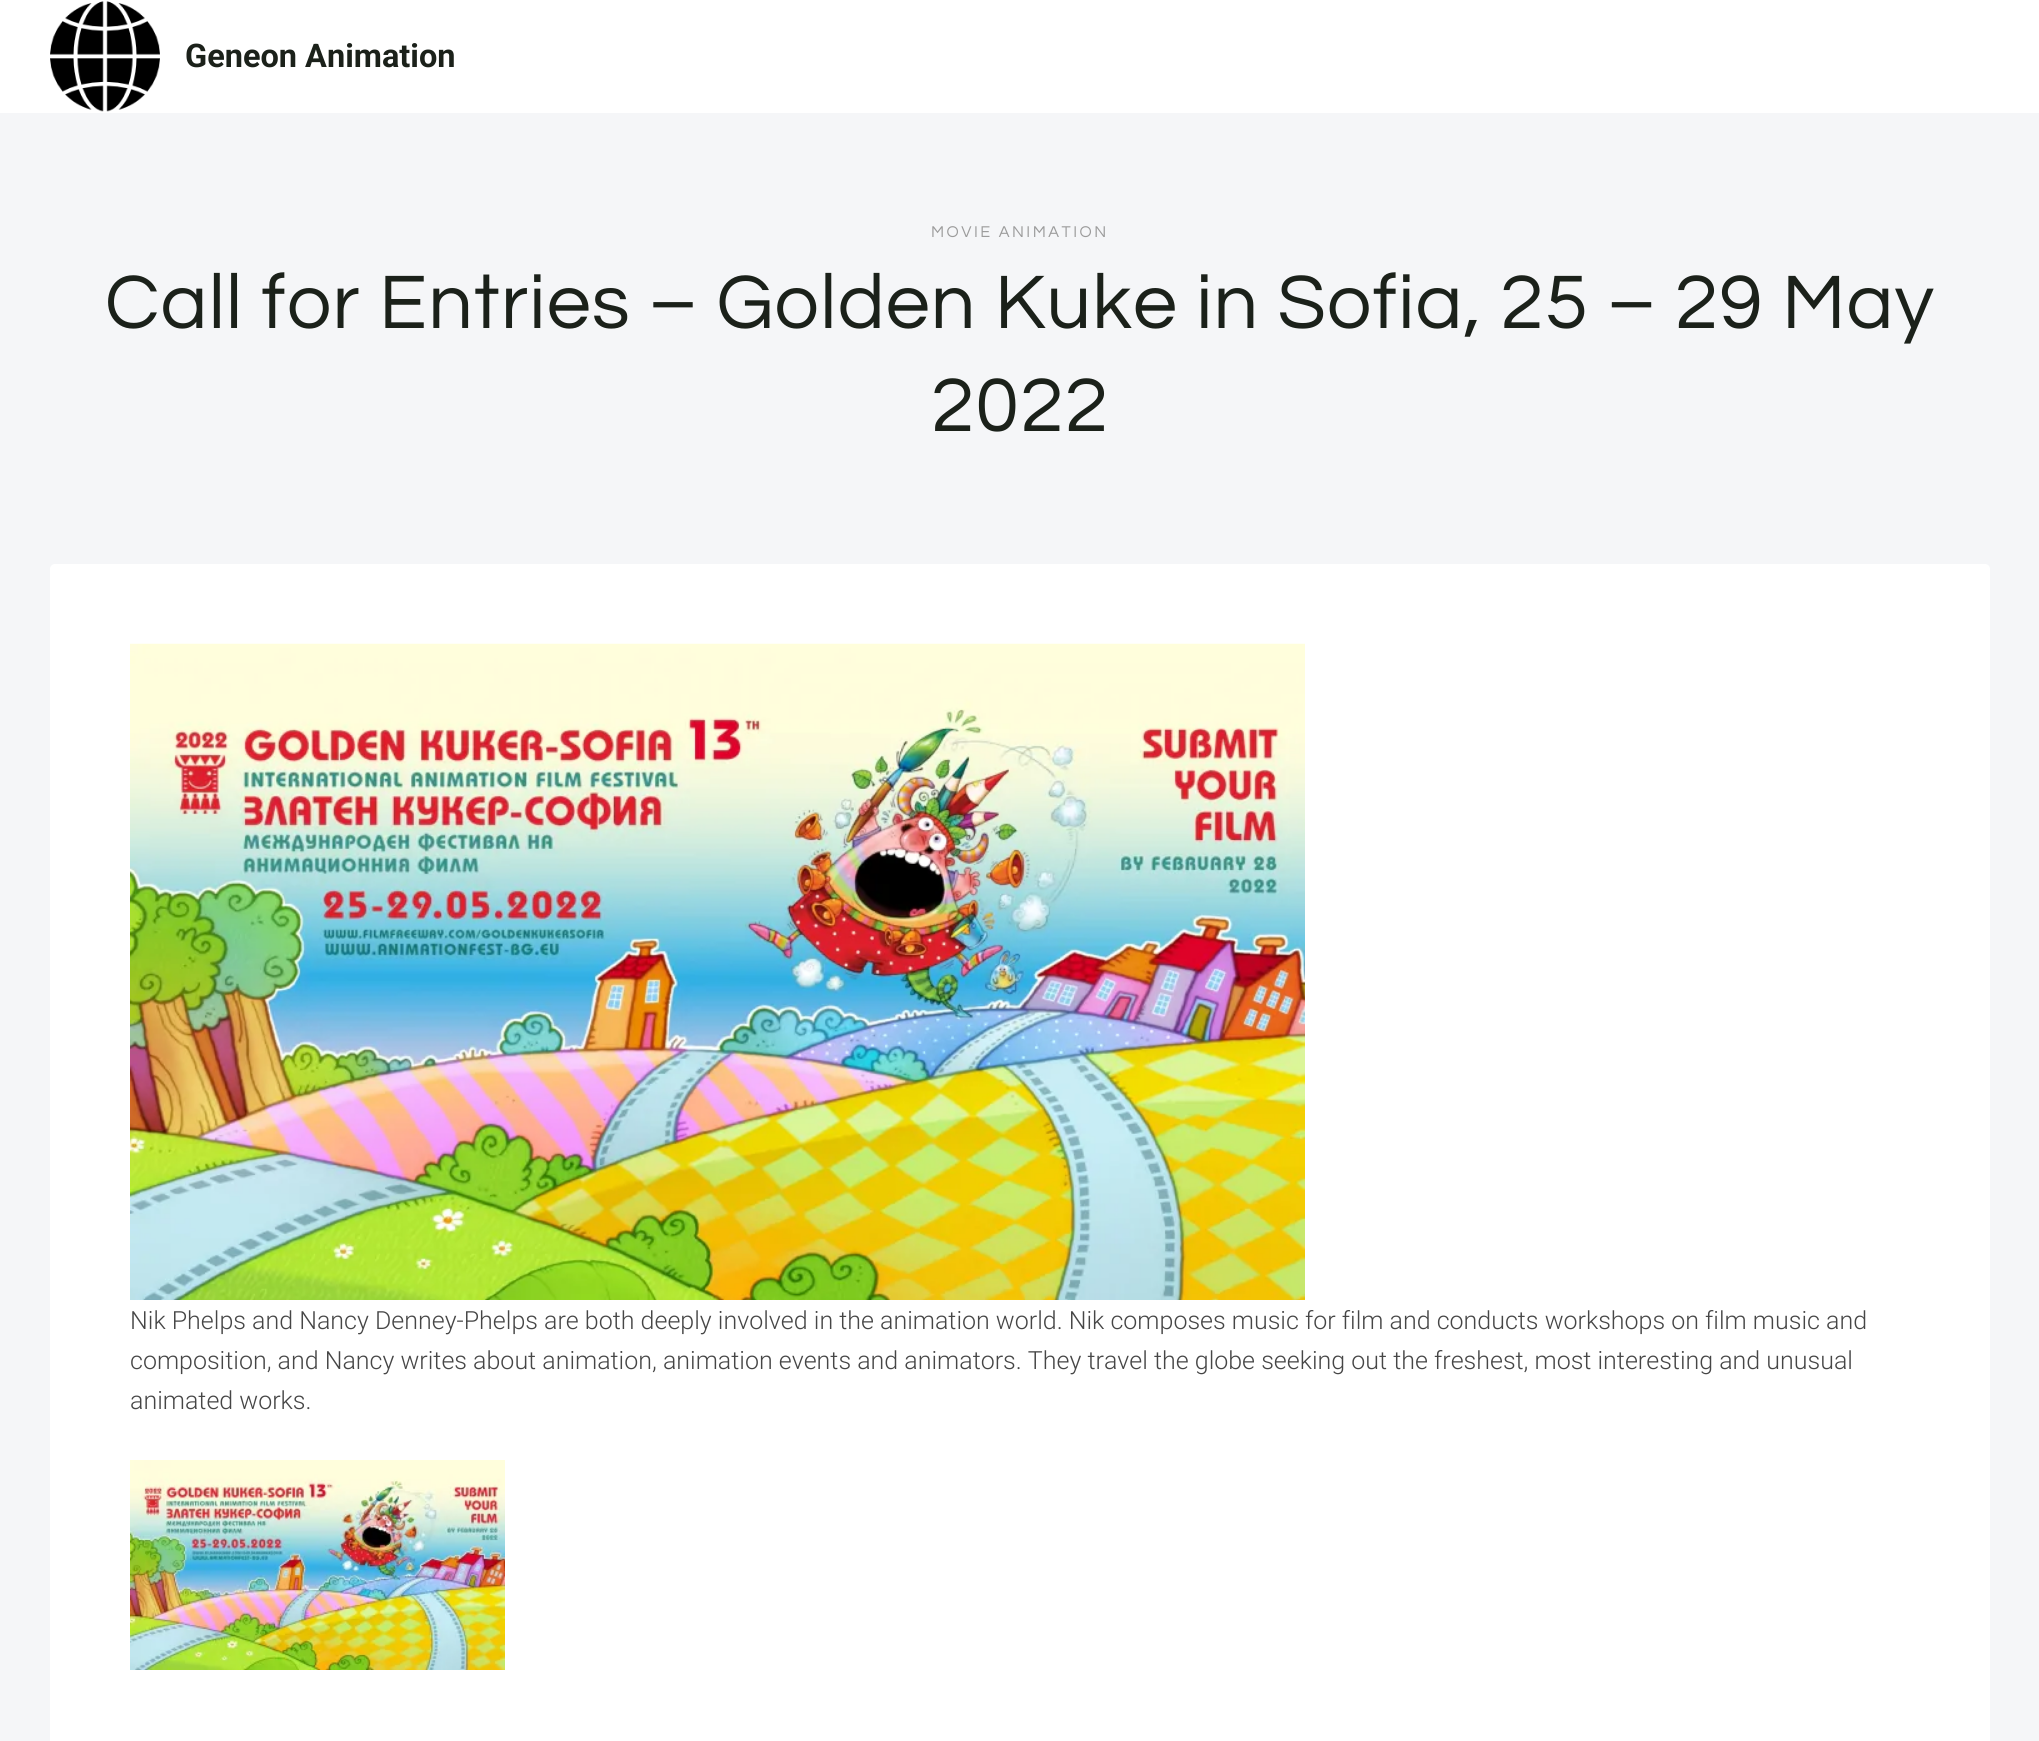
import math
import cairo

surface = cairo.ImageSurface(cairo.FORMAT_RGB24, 2039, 1741)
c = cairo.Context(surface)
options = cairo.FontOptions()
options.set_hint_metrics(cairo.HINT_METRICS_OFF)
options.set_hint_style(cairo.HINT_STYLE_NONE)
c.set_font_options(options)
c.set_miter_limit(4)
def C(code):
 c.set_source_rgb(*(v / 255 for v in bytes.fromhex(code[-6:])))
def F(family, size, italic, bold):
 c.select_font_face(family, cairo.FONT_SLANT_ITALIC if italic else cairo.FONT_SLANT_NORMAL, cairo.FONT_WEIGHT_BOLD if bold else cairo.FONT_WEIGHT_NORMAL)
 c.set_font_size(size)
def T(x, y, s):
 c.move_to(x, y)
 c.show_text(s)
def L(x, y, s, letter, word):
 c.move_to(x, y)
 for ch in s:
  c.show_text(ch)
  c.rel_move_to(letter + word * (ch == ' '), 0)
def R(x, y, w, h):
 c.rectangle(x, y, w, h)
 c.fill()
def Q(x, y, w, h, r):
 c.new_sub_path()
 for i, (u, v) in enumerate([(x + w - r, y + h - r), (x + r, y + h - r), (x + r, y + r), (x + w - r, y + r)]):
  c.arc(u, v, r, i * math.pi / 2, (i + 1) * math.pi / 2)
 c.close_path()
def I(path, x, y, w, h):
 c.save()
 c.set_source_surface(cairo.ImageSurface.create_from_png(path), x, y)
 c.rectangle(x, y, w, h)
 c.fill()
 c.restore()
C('f5f6f8')
c.paint()
C('ffffff')
R(0,0,2039,113)
I('1.png',50,1,110,111)
F('Roboto',32.5,0,1)
C('1b211a')
T(185,67,'Geneon Animation')
F('Questrial',16.25,0,0)
C('9c9c9c')
L(931,237,'MOVIE ANIMATION',2.5,0)
F('Questrial',78.75,0,0)
C('1b211a')
L(105,328,'Call for Entries – Golden Kuke in Sofia, 25 – 29 May',1.25,0)
L(931,431,'2022',1.25,0)
C('ffffff')
Q(50,564,1940,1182,5)
c.fill()
I('2.png',130,643,1175,657)
F('Roboto Light',25,0,0)
C('464646')
T(130,1329,'Nik Phelps and Nancy Denney-Phelps are both deeply involved in the animation world. Nik composes music for film and conducts workshops on film music and')
T(130,1369,'composition, and Nancy writes about animation, animation events and animators. They travel the globe seeking out the freshest, most interesting and unusual')
T(130,1409,'animated works.')
I('3.png',130,1460,375,210)
surface.write_to_png('o.png')
